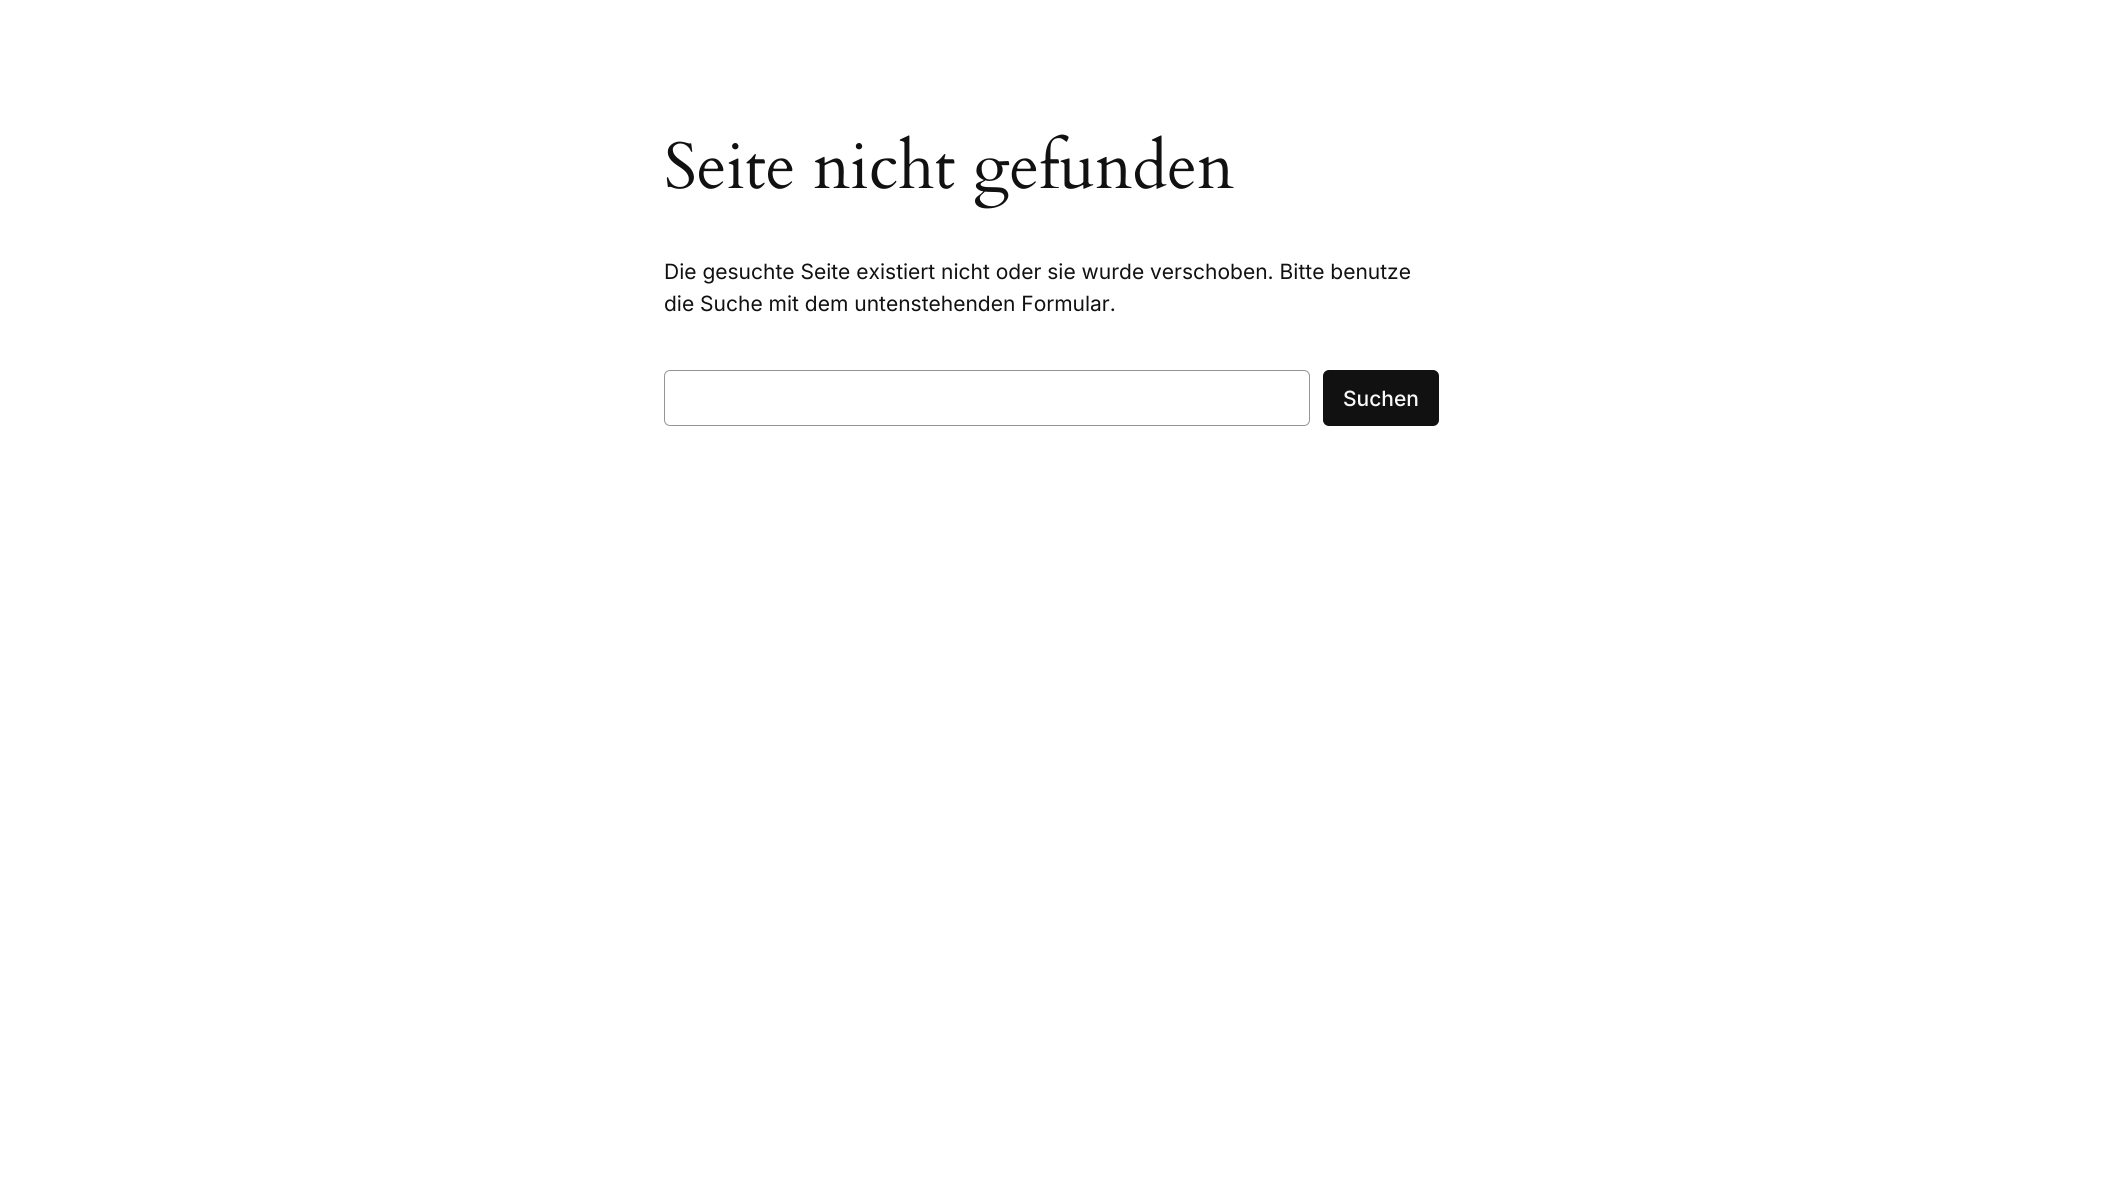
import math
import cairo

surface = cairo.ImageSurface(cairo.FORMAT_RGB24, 2102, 1191)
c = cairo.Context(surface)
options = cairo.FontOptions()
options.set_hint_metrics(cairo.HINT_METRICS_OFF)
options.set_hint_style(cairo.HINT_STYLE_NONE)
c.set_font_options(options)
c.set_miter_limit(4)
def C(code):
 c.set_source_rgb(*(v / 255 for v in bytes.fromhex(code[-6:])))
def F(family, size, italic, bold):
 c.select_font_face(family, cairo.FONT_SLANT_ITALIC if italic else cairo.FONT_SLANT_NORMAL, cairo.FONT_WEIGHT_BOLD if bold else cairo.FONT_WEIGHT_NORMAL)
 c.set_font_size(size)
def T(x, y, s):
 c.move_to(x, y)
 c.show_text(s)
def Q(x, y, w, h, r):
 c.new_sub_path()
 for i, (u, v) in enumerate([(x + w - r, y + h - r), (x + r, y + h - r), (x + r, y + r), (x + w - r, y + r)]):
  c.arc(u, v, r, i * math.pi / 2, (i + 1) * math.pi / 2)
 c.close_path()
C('ffffff')
c.paint()
F('Cardo',65.5,0,0)
C('111111')
T(664,188,'Seite nicht gefunden')
F('Inter',21,0,0)
T(664,279,'Die gesuchte Seite existiert nicht oder sie wurde verschoben. Bitte benutze')
T(664,311,'die Suche mit dem untenstehenden Formular.')
Q(664.5,370.5,645,55,5.5)
C('949494')
c.set_line_width(1)
c.stroke()
C('111111')
Q(1323,370,116,56,6)
c.fill()
F('Inter Medium',21,0,0)
C('f9f9f9')
T(1343,406,'Suchen')
surface.write_to_png('o.png')
